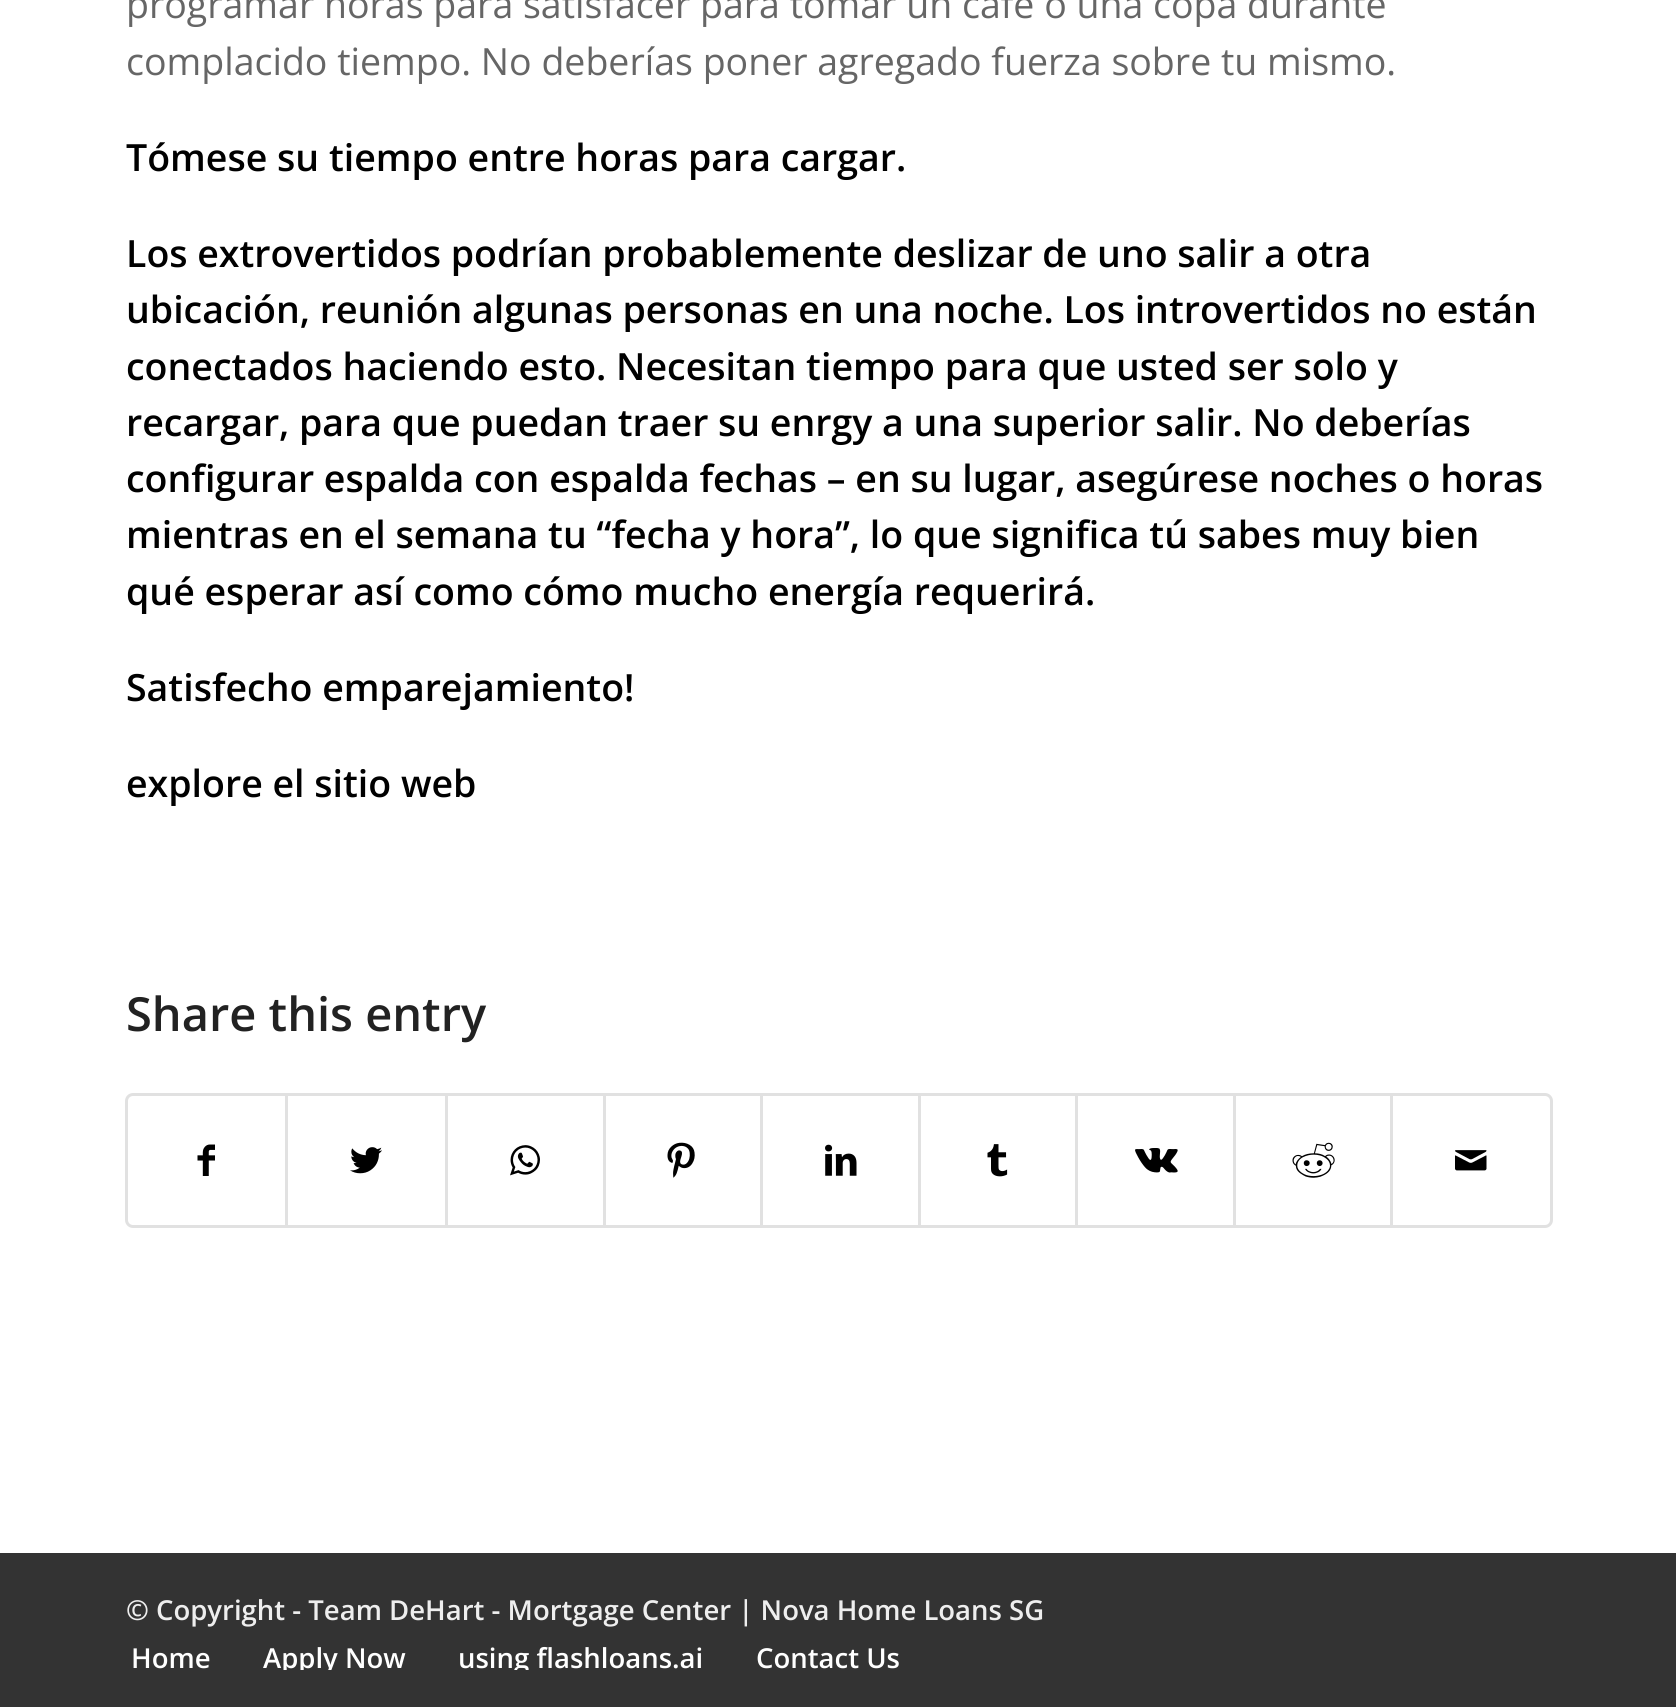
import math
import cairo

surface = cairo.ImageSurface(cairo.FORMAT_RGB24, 1676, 1707)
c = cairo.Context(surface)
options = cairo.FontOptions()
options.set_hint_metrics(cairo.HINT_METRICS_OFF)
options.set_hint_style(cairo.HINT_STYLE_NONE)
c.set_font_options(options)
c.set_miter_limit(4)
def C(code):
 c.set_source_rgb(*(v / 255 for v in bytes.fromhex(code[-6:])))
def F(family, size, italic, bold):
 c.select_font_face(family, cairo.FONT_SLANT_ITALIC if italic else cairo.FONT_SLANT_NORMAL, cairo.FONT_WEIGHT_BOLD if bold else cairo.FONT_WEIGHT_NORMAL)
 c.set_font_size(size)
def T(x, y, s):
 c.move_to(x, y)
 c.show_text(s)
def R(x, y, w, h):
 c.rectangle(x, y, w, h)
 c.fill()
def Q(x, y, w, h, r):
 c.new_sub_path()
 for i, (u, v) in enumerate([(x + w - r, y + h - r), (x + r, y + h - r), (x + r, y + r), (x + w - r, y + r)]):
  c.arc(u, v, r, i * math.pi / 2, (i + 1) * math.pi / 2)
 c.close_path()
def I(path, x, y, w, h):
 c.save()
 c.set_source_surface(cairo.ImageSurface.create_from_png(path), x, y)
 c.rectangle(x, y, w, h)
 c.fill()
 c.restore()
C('ffffff')
c.paint()
F('Open Sans',37.5,0,0)
C('666666')
T(126,18,'programar horas para satisfacer para tomar un café o una copa durante')
T(126,75,'complacido tiempo. No deberías poner agregado fuerza sobre tu mismo.')
F('Open Sans SemiBold',37.5,0,0)
C('000000')
T(126,171,'Tómese su tiempo entre horas para cargar.')
T(126,267,'Los extrovertidos podrían probablemente deslizar de uno salir a otra')
T(126,323,'ubicación, reunión algunas personas en una noche. Los introvertidos no están')
T(126,380,'conectados haciendo esto. Necesitan tiempo para que usted ser solo y')
T(126,436,'recargar, para que puedan traer su enrgy a una superior salir. No deberías')
T(126,492,'configurar espalda con espalda fechas – en su lugar, asegúrese noches o horas')
T(126,548,'mientras en el semana tu “fecha y hora”, lo que significa tú sabes muy bien')
T(126,605,'qué esperar así como cómo mucho energía requerirá.')
T(126,701,'Satisfecho emparejamiento!')
T(126,797,'explore el sitio web')
F('Open Sans SemiBold',47,0,0)
C('222222')
T(126,1031,'Share this entry')
Q(126.5,1094.5,1425,132,6.5)
C('e1e1e1')
c.set_line_width(3)
c.stroke()
I('1.png',197,1144,18,32)
R(285,1095,3,130)
I('2.png',350,1147,32,27)
R(445,1095,3,130)
I('3.png',510,1145,30,31)
R(603,1095,3,130)
I('4.png',667,1142,28,36)
R(760,1095,3,130)
I('5.png',825,1144,32,32)
R(918,1095,3,130)
I('6.png',987,1144,21,33)
R(1075,1095,3,130)
I('7.png',1135,1148,43,25)
R(1233,1095,3,130)
I('8.png',1292,1142,43,36)
R(1390,1095,3,130)
I('9.png',1455,1150,32,21)
C('333333')
R(0,1553,1676,154)
F('Open Sans SemiBold',27.5,0,0)
C('eeeeee')
T(126,1620,'© Copyright - Team DeHart - Mortgage Center | Nova Home Loans SG')
C('ffffff')
T(131,1668,'Home')
c.save()
c.rectangle(88,1630,1427,40)
c.clip()
T(263,1668,'Apply Now')
T(458,1668,'using flashloans.ai')
c.restore()
T(756,1668,'Contact Us')
surface.write_to_png('o.png')
